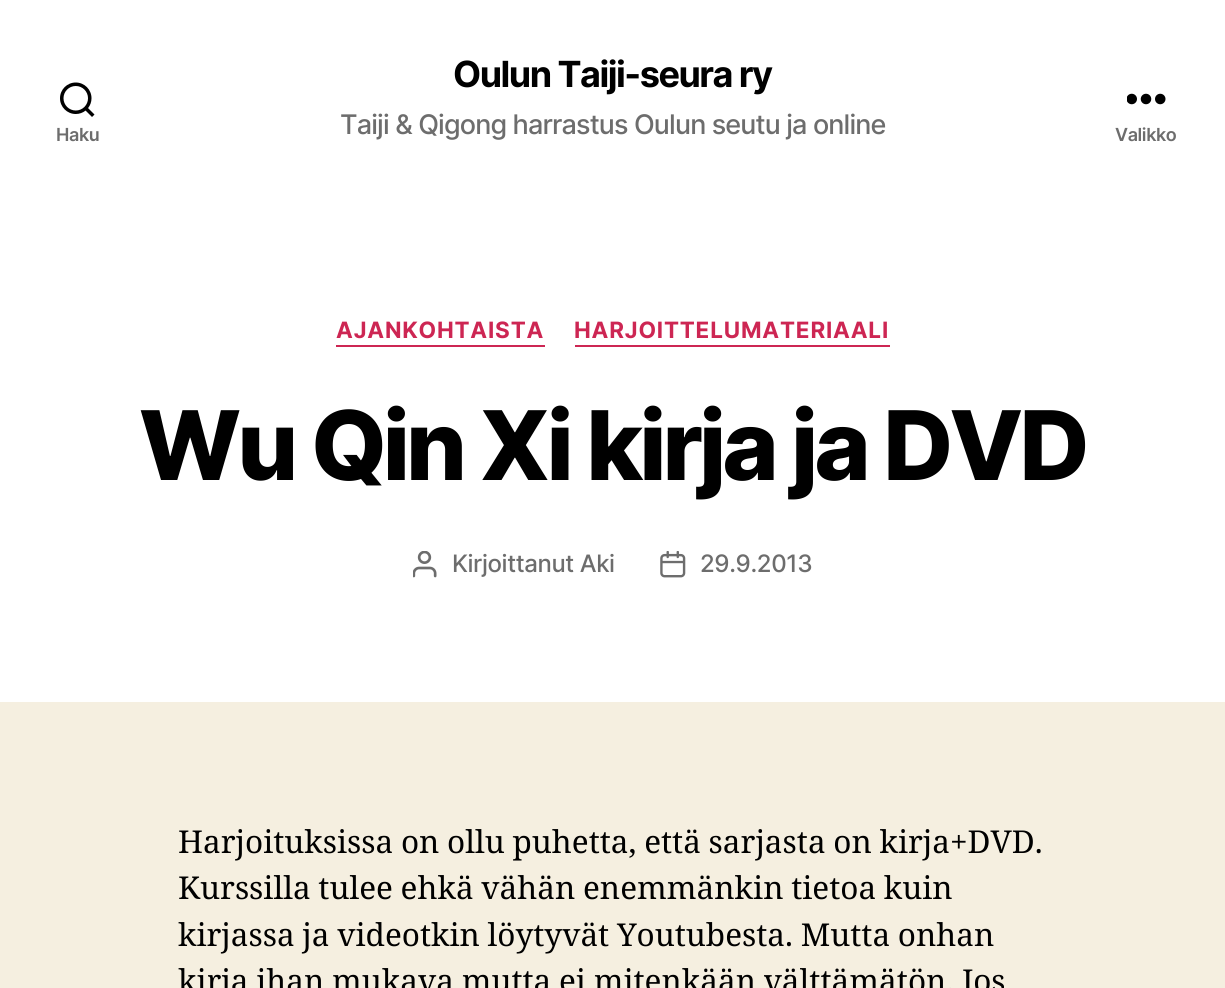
import math
import cairo

surface = cairo.ImageSurface(cairo.FORMAT_RGB24, 1225, 988)
c = cairo.Context(surface)
options = cairo.FontOptions()
options.set_hint_metrics(cairo.HINT_METRICS_OFF)
options.set_hint_style(cairo.HINT_STYLE_NONE)
c.set_font_options(options)
c.set_miter_limit(4)
def C(code):
 c.set_source_rgb(*(v / 255 for v in bytes.fromhex(code[-6:])))
def F(family, size, italic, bold):
 c.select_font_face(family, cairo.FONT_SLANT_ITALIC if italic else cairo.FONT_SLANT_NORMAL, cairo.FONT_WEIGHT_BOLD if bold else cairo.FONT_WEIGHT_NORMAL)
 c.set_font_size(size)
def L(x, y, s, letter, word):
 c.move_to(x, y)
 for ch in s:
  c.show_text(ch)
  c.rel_move_to(letter + word * (ch == ' '), 0)
def R(x, y, w, h):
 c.rectangle(x, y, w, h)
 c.fill()
def I(path, x, y, w, h):
 c.save()
 c.set_source_surface(cairo.ImageSurface.create_from_png(path), x, y)
 c.rectangle(x, y, w, h)
 c.fill()
 c.restore()
C('f5efe0')
c.paint()
C('ffffff')
R(0,0,1225,702)
I('1.png',60,82,35,35)
F('Inter SemiBold',18,0,0)
C('6d6d6d')
L(56,141,'Haku',-.4,0)
F('Inter',36,0,1)
C('000000')
L(453,87,'Oulun Taiji-seura ry',-1.5,0)
F('Inter Medium',27,0,0)
C('6d6d6d')
L(340,134,'Taiji & Qigong harrastus Oulun seutu ja online',-.85,0)
I('2.png',1127,93,39,12)
F('Inter SemiBold',18,0,0)
L(1115,141,'Valikko',-.4,0)
C('cd2653')
R(336,345,209,2)
F('Inter',22.5,0,1)
L(336,338,'AJANKOHTAISTA',.8,0)
R(575,345,315,2)
L(574,338,'HARJOITTELUMATERIAALI',.8,0)
F('Inter ExtraBold',96,0,0)
C('000000')
L(139,480,'Wu Qin Xi kirja ja DVD',-4,0)
I('3.png',413,551,24,27)
F('Inter Medium',24,0,0)
C('6d6d6d')
L(452,572,'Kirjoittanut Aki',-.4,0)
I('4.png',660,551,26,27)
L(700,572,'29.9.2013',-.4,0)
F('Noto Serif',31.5,0,0)
C('000000')
L(178,853,'Harjoituksissa on ollu puhetta, että sarjasta on kirja+DVD.',0,-.5)
L(178,899,'Kurssilla tulee ehkä vähän enemmänkin tietoa kuin',0,-.5)
L(178,946,'kirjassa ja videotkin löytyvät Youtubesta. Mutta onhan',0,-.5)
L(178,992,'kirja ihan mukava mutta ei mitenkään välttämätön. Jos',0,-.5)
surface.write_to_png('o.png')
